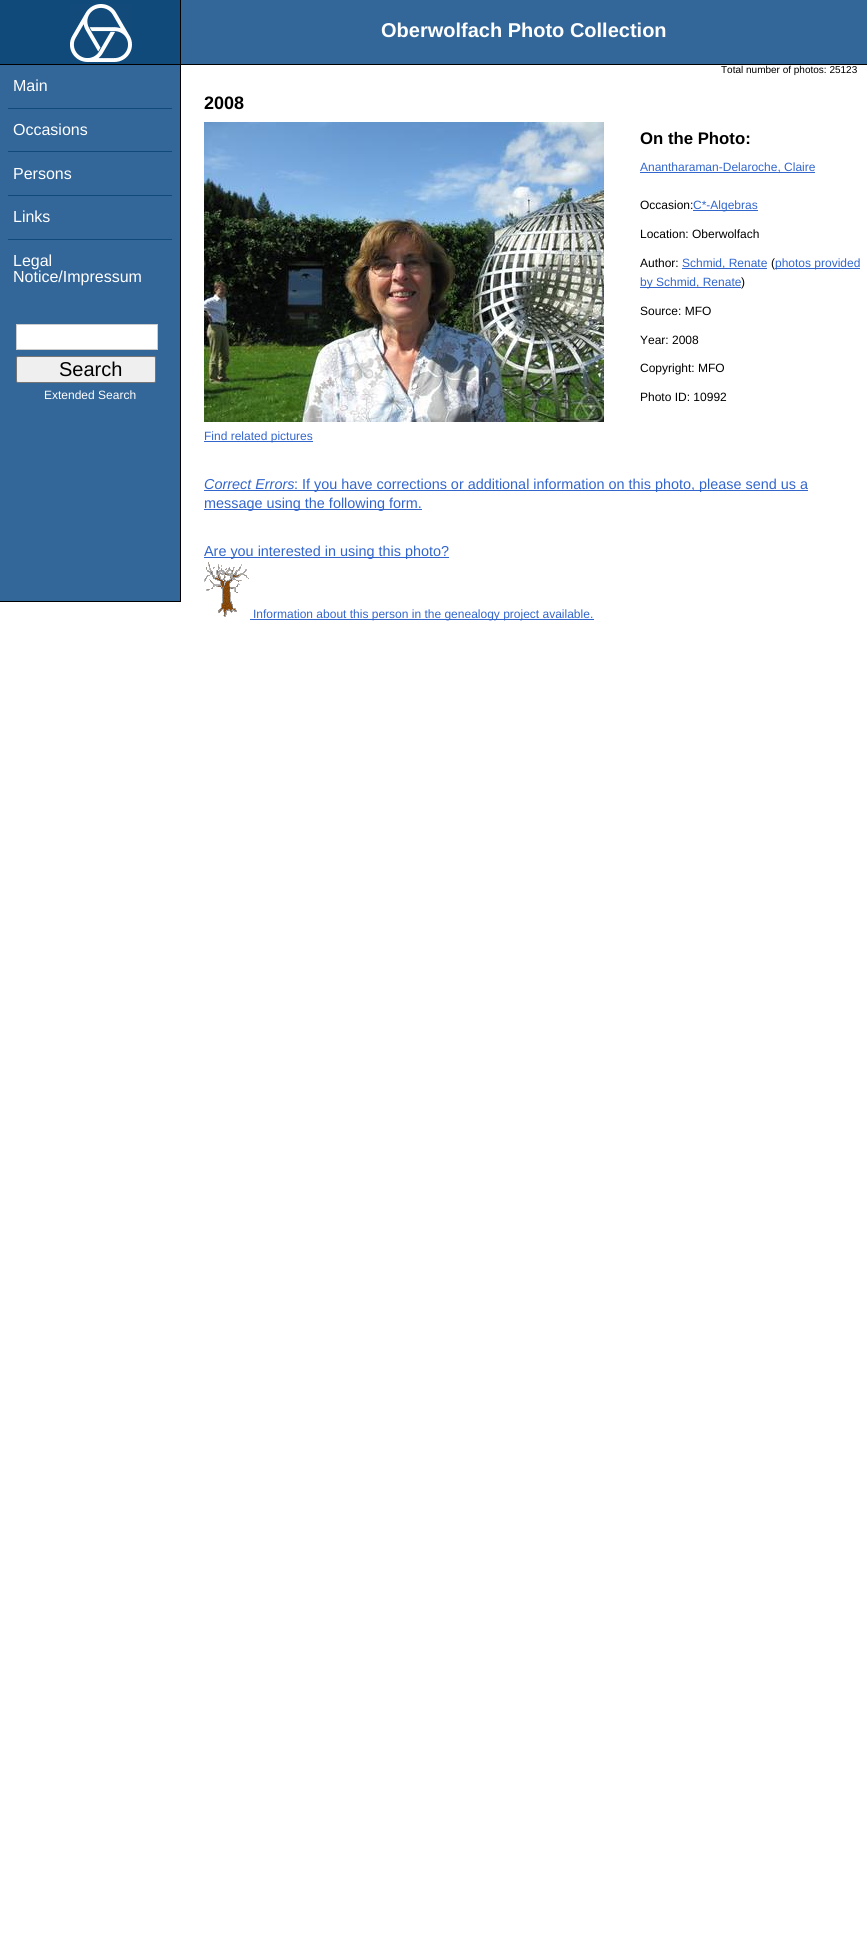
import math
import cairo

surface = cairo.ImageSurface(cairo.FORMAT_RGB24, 867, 1940)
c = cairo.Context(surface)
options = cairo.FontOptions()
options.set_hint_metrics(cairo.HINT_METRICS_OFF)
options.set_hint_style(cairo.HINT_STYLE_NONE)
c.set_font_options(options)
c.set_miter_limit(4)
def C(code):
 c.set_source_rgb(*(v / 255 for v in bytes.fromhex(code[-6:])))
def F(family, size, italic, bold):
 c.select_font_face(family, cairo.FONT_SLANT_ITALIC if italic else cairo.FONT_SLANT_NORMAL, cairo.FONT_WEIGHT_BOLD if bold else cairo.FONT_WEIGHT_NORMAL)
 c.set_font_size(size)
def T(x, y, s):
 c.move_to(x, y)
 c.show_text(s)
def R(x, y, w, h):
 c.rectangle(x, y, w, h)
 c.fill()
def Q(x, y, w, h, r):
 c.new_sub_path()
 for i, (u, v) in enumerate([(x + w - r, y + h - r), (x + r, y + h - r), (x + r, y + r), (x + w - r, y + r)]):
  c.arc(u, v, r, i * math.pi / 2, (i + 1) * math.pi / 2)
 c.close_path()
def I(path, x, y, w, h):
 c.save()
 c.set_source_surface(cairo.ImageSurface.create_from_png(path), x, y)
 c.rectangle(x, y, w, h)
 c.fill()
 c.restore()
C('ffffff')
c.paint()
C('336699')
R(181,0,686,64)
C('000000')
R(0,64,867,1)
C('104a7b')
R(0,0,180,64)
C('000000')
R(180,0,1,64)
I('1.png',70,4,62,58)
F('Liberation Sans',20,0,1)
C('ffffff')
T(381,37,'Oberwolfach Photo Collection')
F('Liberation Sans',10,0,0)
C('000000')
T(721,73,'Total number of photos: 25123')
C('336699')
R(0,65,180,536)
C('000000')
R(180,65,1,537)
R(0,601,181,1)
F('Liberation Sans',16,0,0)
C('ffffff')
T(13,91,'Main')
C('104a7b')
R(8,108,164,1)
C('ffffff')
T(13,135,'Occasions')
C('104a7b')
R(8,151,164,1)
C('ffffff')
T(13,179,'Persons')
C('104a7b')
R(8,195,164,1)
C('ffffff')
T(13,222,'Links')
C('104a7b')
R(8,239,164,1)
C('ffffff')
T(13,266,'Legal')
T(13,282,'Notice/Impressum')
c.rectangle(16.5,324.5,141,25)
c.fill_preserve()
C('cccccc')
c.set_line_width(1)
c.stroke()
C('efefef')
Q(16.5,356.5,139,26,1.5)
c.fill_preserve()
C('767676')
c.stroke()
F('Liberation Sans',20,0,0)
C('000000')
T(59,376,'Search')
F('Liberation Sans',12,0,0)
C('ffffff')
T(44,399,'Extended Search')
F('Liberation Sans',18,0,1)
C('000000')
T(204,109,'2008')
I('2.png',204,122,400,300)
F('Liberation Sans',16.75,0,1)
T(640,144,'On the Photo:')
C('3366cc')
R(640,172,175,1)
F('Liberation Sans',12,0,0)
T(640,171,'Anantharaman-Delaroche, Claire')
C('000000')
T(640,209,'Occasion:')
C('3366cc')
R(693,210,65,1)
T(693,209,'C*-Algebras')
C('000000')
T(640,238,'Location: Oberwolfach')
T(640,267,'Author:')
C('3366cc')
R(682,268,85,1)
T(682,267,'Schmid, Renate')
C('000000')
T(771,267,'(')
C('3366cc')
R(775,268,85,1)
T(775,267,'photos provided')
R(640,287,101,1)
T(640,286,'by Schmid, Renate')
C('000000')
T(741,286,')')
T(640,315,'Source: MFO')
T(640,344,'Year: 2008')
T(640,372,'Copyright: MFO')
T(640,401,'Photo ID: 10992')
C('3366cc')
R(204,441,109,1)
T(204,440,'Find related pictures')
F('Liberation Sans',14.4,1,0)
T(204,489,'Correct Errors')
R(204,490,604,1)
F('Liberation Sans',14.4,0,0)
T(294,489,': If you have corrections or additional information on this photo, please send us a')
R(204,509,218,1)
T(204,508,'message using the following form.')
R(204,557,245,1)
T(204,556,'Are you interested in using this photo?')
I('3.png',204,562,45,55)
R(250,619,344,1)
F('Liberation Sans',12,0,0)
T(253,618,'Information about this person in the genealogy project available.')
surface.write_to_png('o.png')
